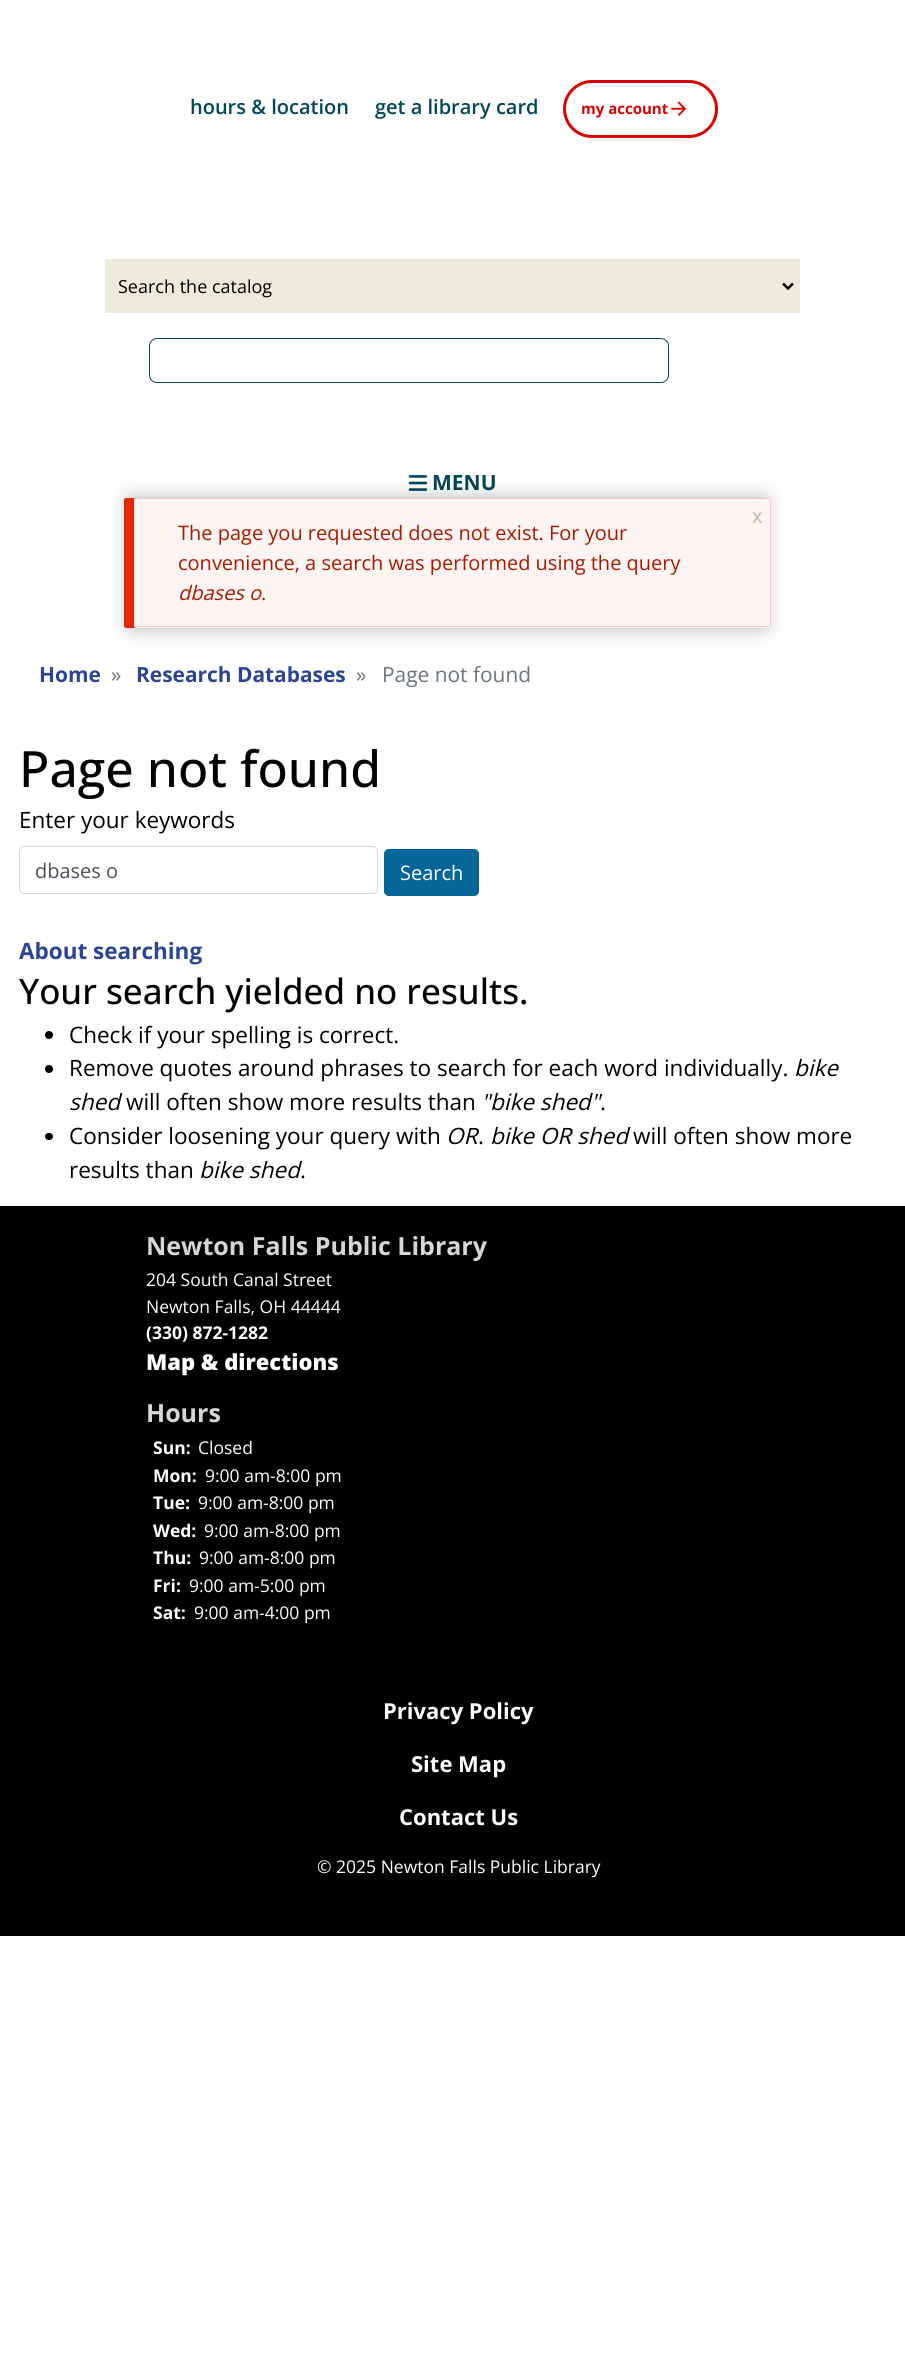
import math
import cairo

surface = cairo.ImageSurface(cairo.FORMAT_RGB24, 905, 2363)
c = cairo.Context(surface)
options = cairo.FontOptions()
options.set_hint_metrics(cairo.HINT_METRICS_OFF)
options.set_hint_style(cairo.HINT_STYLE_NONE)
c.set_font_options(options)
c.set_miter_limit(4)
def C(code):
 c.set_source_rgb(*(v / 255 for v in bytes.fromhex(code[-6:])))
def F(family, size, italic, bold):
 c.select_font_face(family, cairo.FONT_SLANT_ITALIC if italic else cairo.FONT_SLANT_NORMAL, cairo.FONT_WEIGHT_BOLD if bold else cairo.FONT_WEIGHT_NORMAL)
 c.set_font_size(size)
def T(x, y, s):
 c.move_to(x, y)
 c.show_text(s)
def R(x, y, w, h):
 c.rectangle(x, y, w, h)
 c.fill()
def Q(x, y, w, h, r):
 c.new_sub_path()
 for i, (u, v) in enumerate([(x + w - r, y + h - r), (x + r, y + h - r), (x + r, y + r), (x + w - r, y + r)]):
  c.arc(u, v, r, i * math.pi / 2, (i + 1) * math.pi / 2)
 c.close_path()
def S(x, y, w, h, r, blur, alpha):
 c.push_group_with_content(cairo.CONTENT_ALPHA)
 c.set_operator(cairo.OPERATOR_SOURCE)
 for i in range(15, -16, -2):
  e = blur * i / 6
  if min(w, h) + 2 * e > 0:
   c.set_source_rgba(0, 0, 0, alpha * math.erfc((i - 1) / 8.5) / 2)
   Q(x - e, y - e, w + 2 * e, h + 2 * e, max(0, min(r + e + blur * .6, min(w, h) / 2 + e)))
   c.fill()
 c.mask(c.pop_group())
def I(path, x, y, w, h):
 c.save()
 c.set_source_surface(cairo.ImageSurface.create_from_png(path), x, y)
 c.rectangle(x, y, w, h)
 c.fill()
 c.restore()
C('ffffff')
c.paint()
F('Open Sans SemiBold',20,0,0)
C('024659')
T(190,114,'hours & location')
T(375,114,'get a library card')
Q(564.5,81.5,152,55,27.5)
C('da0101')
c.set_line_width(3)
c.stroke()
F('Open Sans',15,0,1)
T(581,114,'my account')
I('1.png',671,101,16,15)
C('edeadc')
R(105,259,695,54)
c.new_path()
c.move_to(783,283.5)
c.line_to(788,288.5)
c.line_to(793,283.5)
C('000000')
c.set_line_width(2.5)
c.stroke()
F('Open Sans',18,0,0)
T(118,293,'Search the catalog')
Q(149.5,338.5,519,44,7.5)
C('024659')
c.set_line_width(1)
c.stroke()
I('2.png',408,475,20,16)
F('Open Sans',21,0,1)
T(432,490,'MENU')
C('000000')
S(129,498,637,130,2.5,9.5,.3)
C('e62600')
c.new_path()
c.move_to(126,498)
c.curve_to(125,498,124,499,124,500)
c.line_to(124,626)
c.curve_to(124,627,125,628,126,628)
c.line_to(758,628)
c.line_to(760,628)
c.line_to(136,628)
c.curve_to(135,628,134,626,134,625)
c.line_to(134,500)
c.curve_to(134,499,134,498,135,498)
c.close_path()
c.fill()
C('fcf4f2')
Q(134,498,637,130,2.5)
c.fill()
C('f9c9bf')
R(135,498,635,1)
R(770,499,1,127)
R(135,626,635,1)
F('Open Sans',20,0,0)
C('bdb7b6')
T(752,523,'x')
C('a51b00')
T(178,540,'The page you requested does not exist. For your')
T(178,570,'convenience, a search was performed using the query')
F('Open Sans',20,1,0)
T(178,600,'dbases o')
F('Open Sans',20,0,0)
T(261,600,'.')
F('Open Sans',20.9,0,1)
C('2b4593')
T(39,682,'Home')
F('Open Sans',20.9,0,0)
C('6c757d')
T(111,682,'»')
F('Open Sans',20.9,0,1)
C('2b4593')
T(136,682,'Research Databases')
F('Open Sans',20.9,0,0)
C('6c757d')
T(356,682,'»')
T(382,682,'Page not found')
F('Open Sans Medium',50,0,0)
C('000000')
T(19,787,'Page not found')
F('Open Sans',22.5,0,0)
T(19,828,'Enter your keywords')
Q(19.5,846.5,358,47,4.5)
C('ced4da')
c.stroke()
F('Open Sans',20,0,0)
C('495057')
T(35,878,'dbases o')
C('066699')
Q(384.5,849.5,94,46,4.5)
c.fill_preserve()
c.stroke()
C('ffffff')
T(400,880,'Search')
F('Open Sans',22.5,0,1)
C('2b4593')
T(19,959,'About searching')
F('Open Sans Medium',35,0,0)
C('000000')
T(19,1004,'Your search yielded no results.')
c.new_path()
c.arc(49,1035,4,0,2 * math.pi)
c.fill()
F('Open Sans',22.5,0,0)
T(69,1043,'Check if your spelling is correct.')
c.new_path()
c.arc(49,1069,4,0,2 * math.pi)
c.fill()
T(69,1076,'Remove quotes around phrases to search for each word individually.')
F('Open Sans',22.5,1,0)
T(794,1076,'bike')
T(69,1110,'shed')
F('Open Sans',22.5,0,0)
T(126,1110,'will often show more results than')
F('Open Sans',22.5,1,0)
T(481,1110,'"bike shed"')
F('Open Sans',22.5,0,0)
T(600,1110,'.')
Q(45,1133,8,7,3.5)
c.fill()
T(69,1144,'Consider loosening your query with')
F('Open Sans',22.5,1,0)
T(446,1144,'OR')
T(490,1144,'bike OR shed')
F('Open Sans',22.5,0,0)
T(633,1144,'will often show more')
T(478,1144,'.')
T(69,1178,'results than')
F('Open Sans',22.5,1,0)
T(199,1178,'bike shed')
F('Open Sans',22.5,0,0)
T(300,1178,'.')
R(0,1206,905,730)
F('Open Sans',25,0,1)
C('d6d6d6')
T(146,1255,'Newton Falls Public Library')
F('Open Sans',17.5,0,0)
C('ffffff')
T(146,1286,'204 South Canal Street')
T(146,1313,'Newton Falls, OH 44444')
F('Open Sans',17.5,0,1)
T(146,1339,'(330) 872-1282')
F('Open Sans ExtraBold',22,0,0)
T(146,1370,'Map & directions')
F('Open Sans',25,0,1)
C('d6d6d6')
T(146,1422,'Hours')
F('Open Sans',17.5,0,1)
C('ffffff')
T(153,1454,'Sun:')
F('Open Sans',17.5,0,0)
T(198,1454,'Closed')
F('Open Sans',17.5,0,1)
T(153,1482,'Mon:')
F('Open Sans',17.5,0,0)
T(205,1482,'9:00 am-8:00 pm')
F('Open Sans',17.5,0,1)
T(153,1509,'Tue:')
F('Open Sans',17.5,0,0)
T(198,1509,'9:00 am-8:00 pm')
F('Open Sans',17.5,0,1)
T(153,1537,'Wed:')
F('Open Sans',17.5,0,0)
T(204,1537,'9:00 am-8:00 pm')
F('Open Sans',17.5,0,1)
T(153,1564,'Thu:')
F('Open Sans',17.5,0,0)
T(199,1564,'9:00 am-8:00 pm')
F('Open Sans',17.5,0,1)
T(153,1592,'Fri:')
F('Open Sans',17.5,0,0)
T(189,1592,'9:00 am-5:00 pm')
F('Open Sans',17.5,0,1)
T(153,1619,'Sat:')
F('Open Sans',17.5,0,0)
T(194,1619,'9:00 am-4:00 pm')
F('Open Sans',22,0,1)
T(383,1719,'Privacy Policy')
T(411,1772,'Site Map')
T(399,1825,'Contact Us')
F('Open Sans',17.5,0,0)
T(317,1873,'© 2025 Newton Falls Public Library')
surface.write_to_png('o.png')
